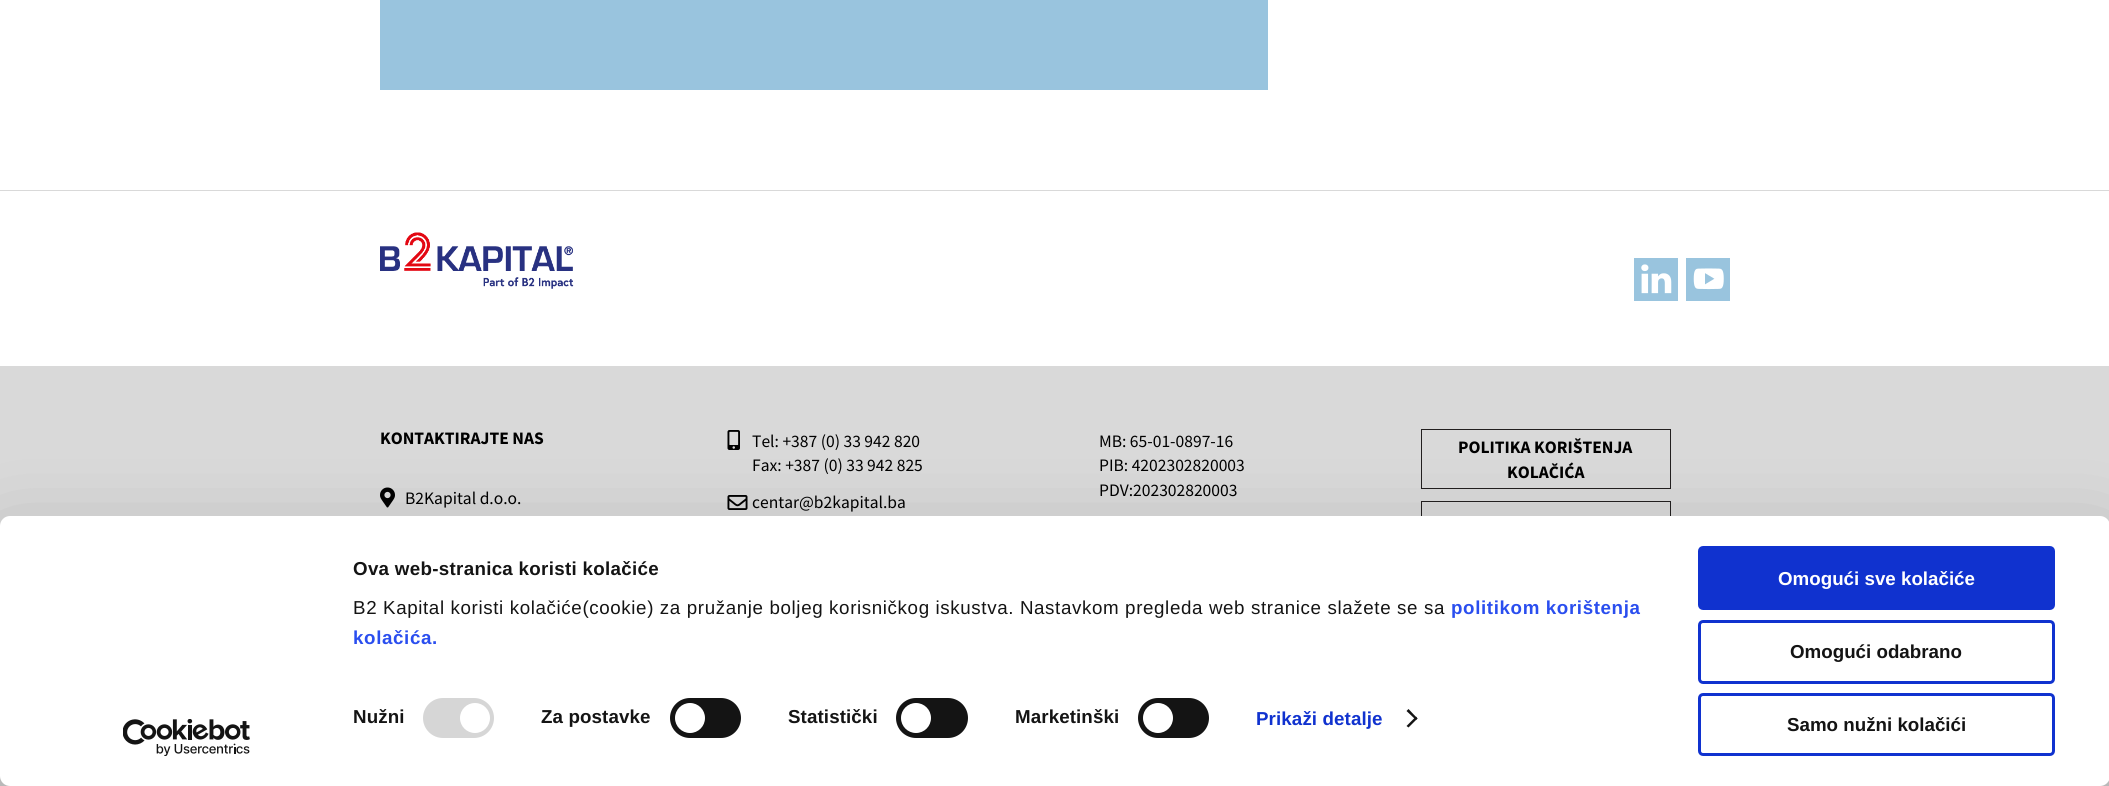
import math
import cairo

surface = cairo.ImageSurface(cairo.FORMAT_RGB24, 2109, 786)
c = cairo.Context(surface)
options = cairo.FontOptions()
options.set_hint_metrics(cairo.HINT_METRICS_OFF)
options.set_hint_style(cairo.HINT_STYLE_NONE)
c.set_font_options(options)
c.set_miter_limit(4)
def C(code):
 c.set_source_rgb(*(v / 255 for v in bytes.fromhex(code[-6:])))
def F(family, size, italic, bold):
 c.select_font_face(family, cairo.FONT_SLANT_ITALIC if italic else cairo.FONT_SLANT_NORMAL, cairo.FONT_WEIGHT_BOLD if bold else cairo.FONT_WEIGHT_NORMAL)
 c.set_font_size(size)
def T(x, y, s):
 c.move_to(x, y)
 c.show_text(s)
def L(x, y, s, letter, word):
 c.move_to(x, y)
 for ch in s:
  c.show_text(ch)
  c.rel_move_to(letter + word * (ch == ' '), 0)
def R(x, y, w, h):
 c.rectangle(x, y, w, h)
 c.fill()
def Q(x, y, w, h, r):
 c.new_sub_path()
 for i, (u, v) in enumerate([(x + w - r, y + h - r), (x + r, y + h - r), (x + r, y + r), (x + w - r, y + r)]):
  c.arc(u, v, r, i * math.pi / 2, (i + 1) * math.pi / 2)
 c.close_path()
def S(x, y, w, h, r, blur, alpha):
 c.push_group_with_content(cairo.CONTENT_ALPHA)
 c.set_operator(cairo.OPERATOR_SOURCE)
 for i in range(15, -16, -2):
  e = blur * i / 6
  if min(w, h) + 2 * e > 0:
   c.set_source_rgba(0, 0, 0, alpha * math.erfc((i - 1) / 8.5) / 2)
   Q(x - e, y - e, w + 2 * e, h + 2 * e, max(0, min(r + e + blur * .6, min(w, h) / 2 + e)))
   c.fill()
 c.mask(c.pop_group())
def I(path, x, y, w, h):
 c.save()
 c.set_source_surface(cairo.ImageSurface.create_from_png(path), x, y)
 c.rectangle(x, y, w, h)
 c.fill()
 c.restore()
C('ffffff')
c.paint()
C('99c4de')
R(380,0,888,90)
C('d9d9d9')
R(0,190,2109,1)
I('1.png',380,232,194,57)
C('99c4de')
R(1634,258,44,43)
I('2.png',1641,264,31,30)
R(1686,258,44,43)
I('3.png',1693,268,31,22)
C('d9d9d9')
R(0,366,2109,420)
F('Source Sans Pro',17.5,0,1)
C('000000')
T(380,444,'KONTAKTIRAJTE NAS')
I('4.png',380,487,15,21)
F('Source Sans Pro',17.5,0,0)
T(405,504,'B2Kapital d.o.o.')
I('5.png',727,430,13,20)
T(752,447,'Tel: +387 (0) 33 942 820')
T(752,471,'Fax: +387 (0) 33 942 825')
I('6.png',727,495,21,15)
T(752,508,'centar@b2kapital.ba')
T(1099,447,'MB: 65-01-0897-16')
T(1099,471,'PIB: 4202302820003')
T(1099,496,'PDV:202302820003')
c.rectangle(1421.5,429.5,249,59)
C('221f1f')
c.set_line_width(1)
c.stroke()
F('Source Sans Pro',17.5,0,1)
C('000000')
T(1458,453,'POLITIKA KORIŠTENJA')
T(1507,478,'KOLAČIĆA')
c.rectangle(1421.5,501.5,249,59)
C('221f1f')
c.stroke()
C('000000')
S(0,554,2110,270,10,44,.3)
C('ffffff')
Q(0,516,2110,270,10)
c.fill()
F('Liberation Sans',18.75,0,1)
C('141414')
L(353,575,'Ova web-stranica koristi kolačiće',.3,0)
F('Liberation Sans',18.75,0,0)
L(353,614,'B2 Kapital koristi kolačiće(cookie) za pružanje boljeg korisničkog iskustva. Nastavkom pregleda web stranice slažete se sa',.62,0)
F('Liberation Sans',18.75,0,1)
C('2a4eef')
L(1451,614,'politikom korištenja',.62,0)
L(353,644,'kolačića.',.62,0)
C('141414')
L(353,723,'Nužni',.1,0)
C('d6d6d6')
Q(423,698,71,40,20)
c.fill()
C('ffffff')
c.arc(475,718,15,0,2 * math.pi)
c.fill()
C('141414')
L(541,723,'Za postavke',.1,0)
Q(670,698,71,40,20)
c.fill()
C('ffffff')
c.arc(690,718,15,0,2 * math.pi)
c.fill()
C('141414')
L(788,723,'Statistički',.1,0)
Q(896,698,72,40,20)
c.fill()
C('ffffff')
c.arc(916,718,15,0,2 * math.pi)
c.fill()
C('141414')
L(1015,723,'Marketinški',.1,0)
Q(1138,698,71,40,20)
c.fill()
C('ffffff')
c.arc(1158,718,15,0,2 * math.pi)
c.fill()
C('1032cf')
L(1256,725,'Prikaži detalje',.1,0)
C('141414')
c.new_path()
c.move_to(1408.5,709)
c.line_to(1417.5,718.5)
c.line_to(1416,720)
c.line_to(1406.5,711)
c.close_path()
c.fill()
c.new_path()
c.move_to(1416,716.5)
c.line_to(1417.5,718.5)
c.line_to(1408.5,727.5)
c.line_to(1406.5,726)
c.close_path()
c.fill()
C('1032cf')
Q(1699.5,547.5,354,61,3.5)
c.fill_preserve()
c.set_line_width(3)
c.stroke()
C('ffffff')
T(1778,585,'Omogući sve kolačiće')
Q(1699.5,621.5,354,61,3.5)
C('1032cf')
c.stroke()
C('141414')
T(1790,658,'Omogući odabrano')
Q(1699.5,694.5,354,60,3.5)
C('1032cf')
c.stroke()
C('141414')
T(1787,731,'Samo nužni kolačići')
I('7.png',123,719,127,37)
surface.write_to_png('o.png')
